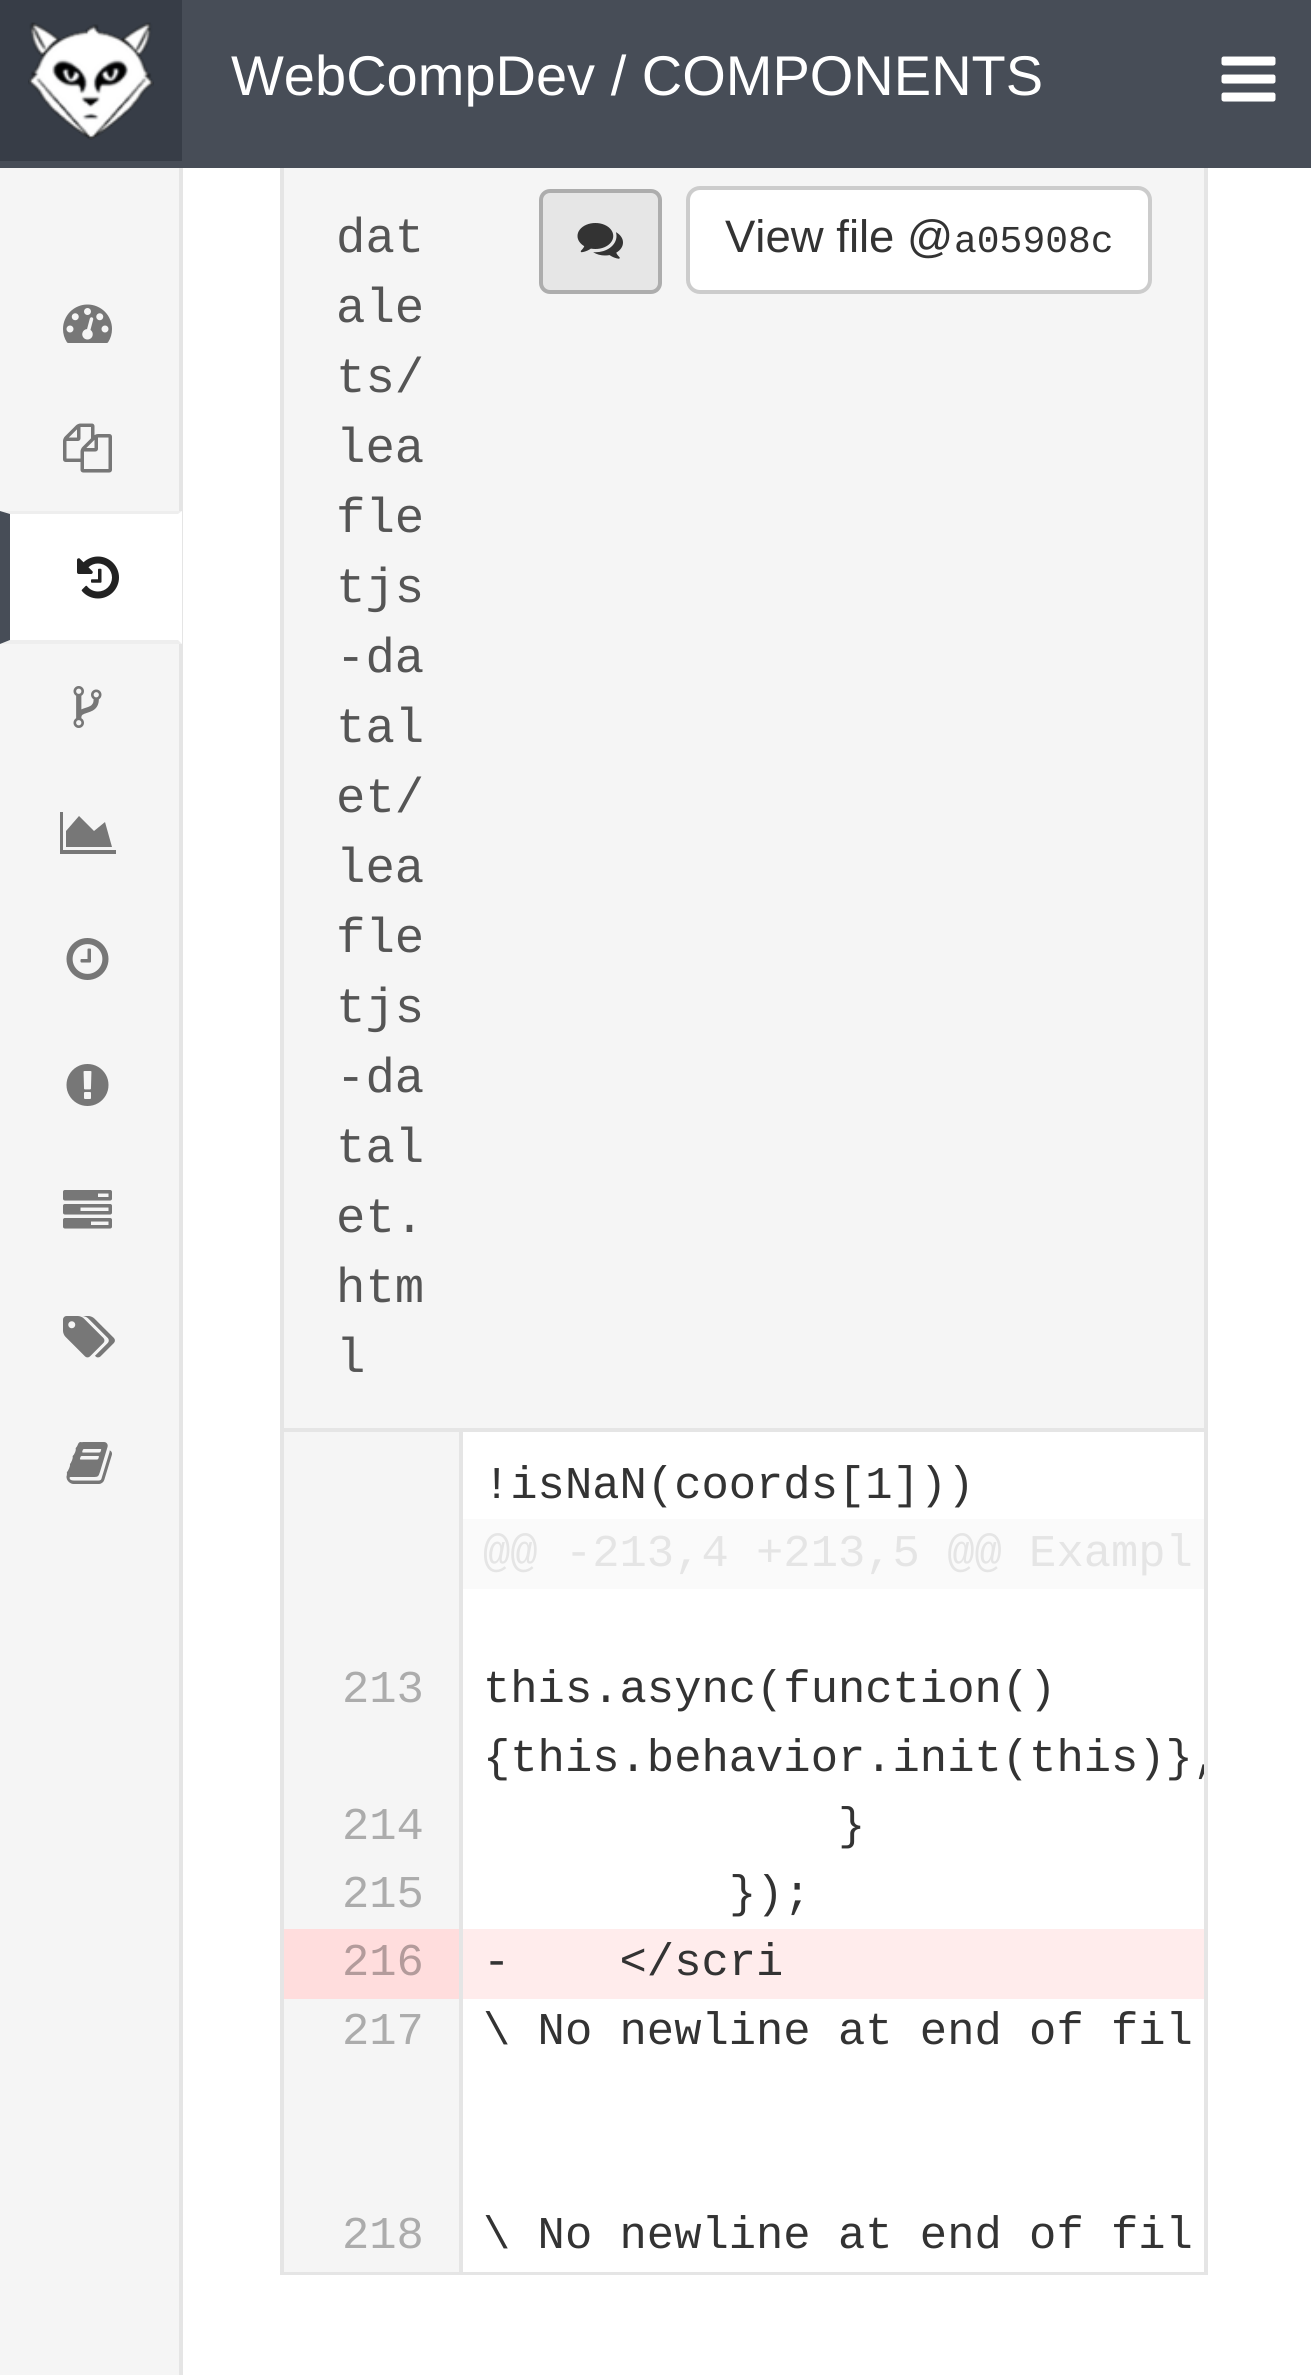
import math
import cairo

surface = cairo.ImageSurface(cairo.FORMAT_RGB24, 1311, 2375)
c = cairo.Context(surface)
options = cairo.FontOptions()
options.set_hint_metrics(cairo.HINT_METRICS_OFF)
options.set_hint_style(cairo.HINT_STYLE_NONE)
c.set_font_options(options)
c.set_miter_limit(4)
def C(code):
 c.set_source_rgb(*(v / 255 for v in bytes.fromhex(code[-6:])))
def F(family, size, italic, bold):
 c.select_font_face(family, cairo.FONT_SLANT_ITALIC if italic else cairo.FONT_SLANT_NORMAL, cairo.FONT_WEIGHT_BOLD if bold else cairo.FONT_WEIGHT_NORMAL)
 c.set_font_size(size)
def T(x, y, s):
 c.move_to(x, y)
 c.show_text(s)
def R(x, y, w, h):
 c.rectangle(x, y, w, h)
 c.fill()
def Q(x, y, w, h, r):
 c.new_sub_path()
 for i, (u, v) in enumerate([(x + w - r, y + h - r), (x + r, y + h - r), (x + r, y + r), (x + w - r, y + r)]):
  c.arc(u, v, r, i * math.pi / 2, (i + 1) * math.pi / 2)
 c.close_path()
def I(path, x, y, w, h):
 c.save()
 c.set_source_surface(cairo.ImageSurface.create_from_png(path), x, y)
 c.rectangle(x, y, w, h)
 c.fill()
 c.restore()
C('ffffff')
c.paint()
c.rectangle(282,-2,924,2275)
C('e5e5e5')
c.set_line_width(4)
c.stroke()
C('474d57')
R(0,0,1311,168)
C('373d47')
R(0,0,182,161)
I('1.png',28,22,126,118)
F('Liberation Sans',56,0,0)
C('ffffff')
T(231,95,'WebCompDev / COMPONENTS')
I('2.png',1221,56,55,46)
C('f5f5f5')
R(0,168,179,2207)
C('e5e5e5')
R(179,168,4,2207)
I('3.png',63,304,49,39)
I('4.png',63,423,49,50)
C('ffffff')
R(0,511,182,133)
C('eeeeee')
c.new_path()
c.move_to(0,511)
c.line_to(182,511)
c.line_to(178,514)
c.line_to(10,514)
c.close_path()
c.fill()
c.new_path()
c.move_to(182,644)
c.line_to(0,644)
c.line_to(10,640)
c.line_to(178,640)
c.close_path()
c.fill()
C('474d57')
c.new_path()
c.move_to(0,644)
c.line_to(0,511)
c.line_to(10,514)
c.line_to(10,640)
c.close_path()
c.fill()
I('5.png',77,556,42,43)
I('6.png',73,686,29,42)
C('777777')
c.new_path()
c.move_to(116,850)
c.line_to(116,854)
c.line_to(60,854)
c.line_to(60,812)
c.line_to(63,812)
c.line_to(63,850)
c.close_path()
c.move_to(105,822)
c.line_to(112,847)
c.line_to(66,847)
c.line_to(66,831)
c.line_to(79,816)
c.line_to(94,831)
c.close_path()
c.fill()
I('7.png',66,938,43,42)
I('8.png',66,1064,43,42)
I('9.png',63,1190,49,39)
I('10.png',63,1316,52,42)
I('11.png',66,1442,46,42)
C('f5f5f5')
R(284,168,920,1260)
C('e5e5e5')
R(284,1428,920,4)
F('Liberation Mono',49,0,0)
C('555555')
T(336,252,'dat')
T(336,322,'ale')
T(336,392,'ts/')
T(336,462,'lea')
T(336,532,'fle')
T(336,602,'tjs')
T(336,672,'-da')
T(336,742,'tal')
T(336,812,'et/')
T(336,882,'lea')
T(336,952,'fle')
T(336,1022,'tjs')
T(336,1092,'-da')
T(336,1162,'tal')
T(336,1232,'et.')
T(336,1302,'htm')
T(336,1372,'l')
C('e6e6e6')
Q(541,191,119,101,9)
c.fill_preserve()
C('adadad')
c.stroke()
I('12.png',577,223,46,36)
C('ffffff')
Q(688,188,462,104,12)
c.fill_preserve()
C('cccccc')
c.stroke()
F('Liberation Sans',45.5,0,0)
C('333333')
T(725,252,'View file @')
F('Liberation Mono',38,0,0)
T(954,252,'a05908c')
C('ffffff')
R(463,2271,741,1)
C('f5f5f5')
R(284,1432,175,497)
F('Liberation Mono',45.5,0,0)
C('333333')
T(483,1498,'!isNaN(coords[1]))')
C('fafafa')
R(463,1519,741,70)
C('e5e5e5')
T(483,1566,'@@ -213,4 +213,5 @@ Exampl')
C('acacac')
T(342,1702,'213')
C('333333')
T(483,1702,'this.async(function()')
c.save()
c.rectangle(284,427,920,1845)
c.clip()
T(483,1771,'{this.behavior.init(this)},')
c.restore()
C('acacac')
T(342,1839,'214')
C('333333')
T(838,1839,'}')
C('acacac')
T(342,1907,'215')
C('333333')
T(729,1907,'});')
C('ffdddd')
R(284,1929,175,70)
C('b39b9b')
T(342,1975,'216')
C('ffecec')
R(463,1929,741,70)
C('333333')
T(483,1975,'-    </scri')
C('f5f5f5')
R(284,1999,175,273)
C('acacac')
T(342,2044,'217')
C('333333')
T(483,2044,'\\ No newline at end of fil')
C('e5e5e5')
R(459,1432,4,840)
C('acacac')
T(342,2248,'218')
C('333333')
T(483,2248,'\\ No newline at end of fil')
surface.write_to_png('o.png')
